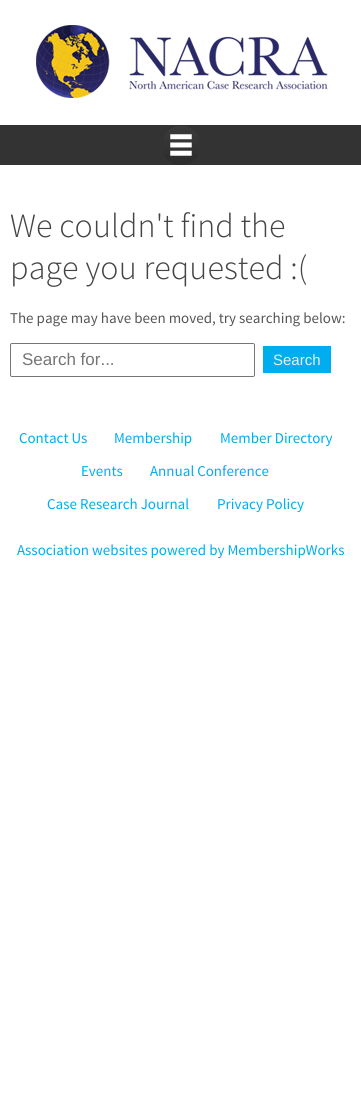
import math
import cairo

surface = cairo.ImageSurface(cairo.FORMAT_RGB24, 361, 1103)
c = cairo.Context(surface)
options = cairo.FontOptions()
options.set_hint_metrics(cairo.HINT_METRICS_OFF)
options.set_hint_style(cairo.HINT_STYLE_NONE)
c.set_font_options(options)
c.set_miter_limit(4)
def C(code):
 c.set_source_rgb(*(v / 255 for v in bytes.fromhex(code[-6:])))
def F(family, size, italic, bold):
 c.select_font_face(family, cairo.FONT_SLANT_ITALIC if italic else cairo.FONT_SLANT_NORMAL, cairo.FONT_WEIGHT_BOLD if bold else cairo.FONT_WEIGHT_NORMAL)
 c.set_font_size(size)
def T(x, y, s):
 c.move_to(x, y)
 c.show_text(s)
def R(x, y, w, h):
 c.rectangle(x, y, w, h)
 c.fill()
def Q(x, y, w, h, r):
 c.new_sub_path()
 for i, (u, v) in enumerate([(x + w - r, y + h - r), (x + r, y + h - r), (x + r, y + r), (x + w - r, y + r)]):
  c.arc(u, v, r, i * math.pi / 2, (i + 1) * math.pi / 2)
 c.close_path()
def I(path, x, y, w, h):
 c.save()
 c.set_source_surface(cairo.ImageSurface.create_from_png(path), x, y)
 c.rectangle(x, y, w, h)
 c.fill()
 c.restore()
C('ffffff')
c.paint()
I('1.png',36,25,292,73)
C('333333')
R(0,125,361,40)
I('2.png',164,126,34,39)
F('Source Sans Pro Light',34,0,0)
C('444444')
T(10,237,'We couldn\'t find the')
T(10,279,'page you requested :(')
F('Source Sans Pro',15,0,0)
C('555555')
T(10,323,'The page may have been moved, try searching below:')
Q(10.5,343.5,244,33,1.5)
C('767676')
c.set_line_width(1)
c.stroke()
F('Liberation Sans',17,0,0)
C('757575')
T(22,365,'Search for...')
C('00adef')
R(263,346,68,27)
F('Liberation Sans',15,0,0)
C('eeeeee')
T(273,365,'Search')
F('Source Sans Pro',15,0,0)
C('00adef')
T(19,443,'Contact Us')
T(114,443,'Membership')
T(220,443,'Member Directory')
T(81,476,'Events')
T(150,476,'Annual Conference')
T(47,509,'Case Research Journal')
T(217,509,'Privacy Policy')
T(17,555,'Association websites powered by MembershipWorks')
surface.write_to_png('o.png')
